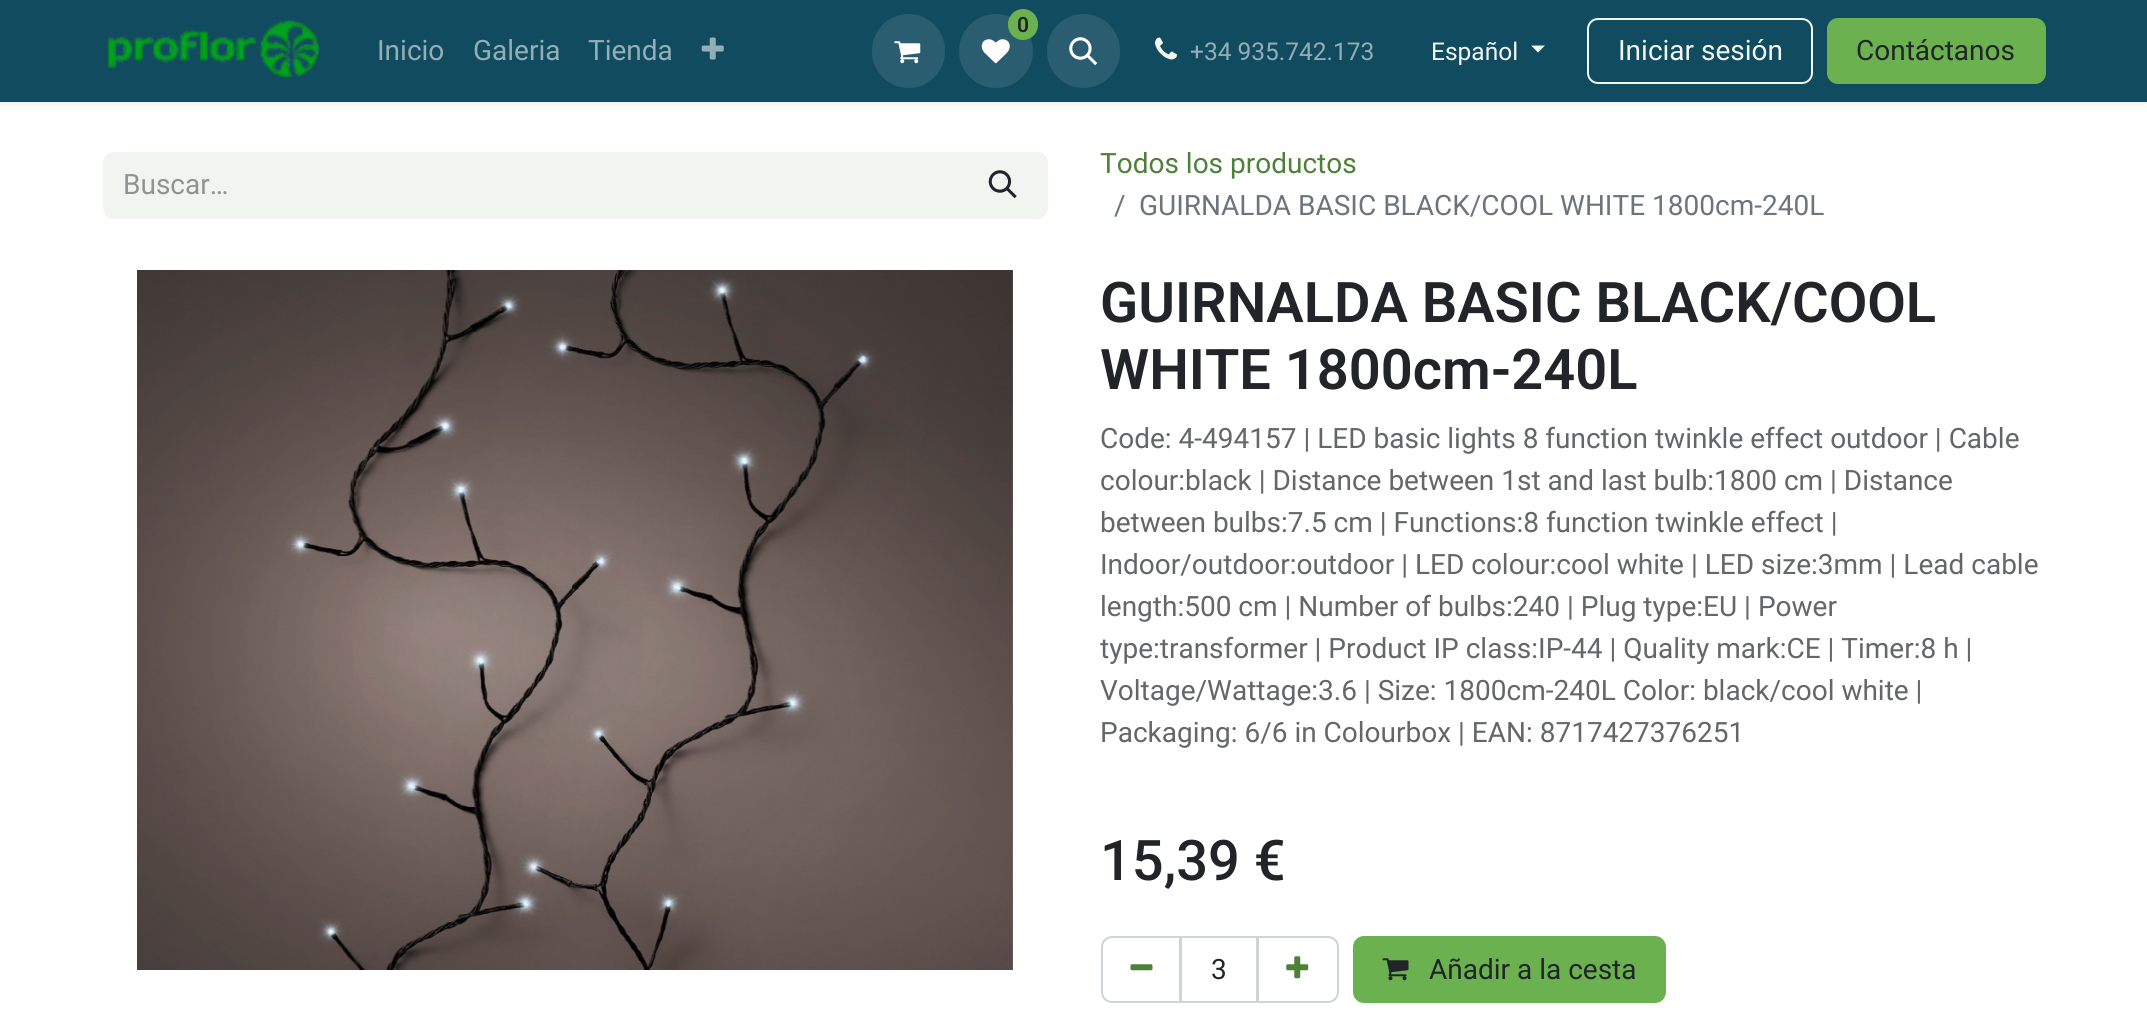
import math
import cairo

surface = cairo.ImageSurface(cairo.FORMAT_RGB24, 2147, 1011)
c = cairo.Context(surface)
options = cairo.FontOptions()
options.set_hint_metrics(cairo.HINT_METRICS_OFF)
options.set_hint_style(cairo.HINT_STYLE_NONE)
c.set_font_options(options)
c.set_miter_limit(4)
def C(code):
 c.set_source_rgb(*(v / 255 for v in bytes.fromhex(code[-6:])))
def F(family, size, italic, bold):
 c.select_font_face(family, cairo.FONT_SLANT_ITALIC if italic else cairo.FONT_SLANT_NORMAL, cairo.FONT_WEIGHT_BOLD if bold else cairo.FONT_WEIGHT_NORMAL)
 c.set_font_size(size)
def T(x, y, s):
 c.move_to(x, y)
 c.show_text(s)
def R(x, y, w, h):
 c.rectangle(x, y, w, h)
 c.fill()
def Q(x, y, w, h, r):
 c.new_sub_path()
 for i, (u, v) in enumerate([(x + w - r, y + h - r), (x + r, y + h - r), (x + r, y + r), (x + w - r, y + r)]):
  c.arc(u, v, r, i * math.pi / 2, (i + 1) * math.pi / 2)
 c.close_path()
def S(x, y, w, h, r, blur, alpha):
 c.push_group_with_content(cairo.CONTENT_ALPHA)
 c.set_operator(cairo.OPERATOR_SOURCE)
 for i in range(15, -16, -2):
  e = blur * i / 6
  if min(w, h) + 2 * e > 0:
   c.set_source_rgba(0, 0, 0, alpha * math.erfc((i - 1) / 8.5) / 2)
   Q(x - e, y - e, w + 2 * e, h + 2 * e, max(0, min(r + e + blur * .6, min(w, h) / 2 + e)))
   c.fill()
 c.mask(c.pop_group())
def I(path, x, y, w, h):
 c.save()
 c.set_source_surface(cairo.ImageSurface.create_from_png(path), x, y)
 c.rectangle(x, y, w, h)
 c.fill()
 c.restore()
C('ffffff')
c.paint()
C('000000')
S(0,2,2147,101,0,2.5,.1)
C('114b5f')
R(0,0,2147,102)
I('1.png',106,19,213,60)
F('Roboto',28,0,0)
C('94aeb7')
T(377,60,'Inicio')
T(473,60,'Galeria')
T(588,60,'Tienda')
I('2.png',701,37,23,23)
C('295d6f')
Q(872,14,73,74,36.5)
c.fill()
I('3.png',894,41,27,23)
c.arc(996,51,37,0,2 * math.pi)
c.fill()
I('4.png',981,39,29,25)
C('6cb14f')
Q(1008,9,30,31,15)
c.fill()
F('Roboto SemiBold',21,0,0)
C('212529')
T(1017,32,'0')
C('295d6f')
Q(1047,14,73,74,36.5)
c.fill()
I('5.png',1069,37,29,29)
I('6.png',1155,37,22,23)
F('Roboto',24.5,0,0)
C('94aeb7')
T(1190,60,'+34 935.742.173')
C('f1f5f0')
T(1431,60,'Español')
c.new_path()
c.move_to(1531,45.5)
c.line_to(1545,45.5)
c.line_to(1538,52.5)
c.close_path()
c.fill()
Q(1588,19,224,64,10)
c.stroke()
F('Roboto',28,0,0)
T(1618,60,'Iniciar sesión')
C('6cb14f')
Q(1828,19,217,64,10)
c.fill_preserve()
c.stroke()
C('212529')
T(1856,60,'Contáctanos')
C('f1f5f0')
c.new_path()
c.move_to(114,152)
c.line_to(961,152)
c.line_to(961,219)
c.line_to(114,219)
c.curve_to(108,219,103,214,103,208)
c.line_to(103,163)
c.curve_to(103,157,108,152,114,152)
c.close_path()
c.fill()
C('909294')
T(123,194,'Buscar…')
C('f1f5f0')
c.new_path()
c.move_to(960,153)
c.line_to(1037,153)
c.curve_to(1042.5,153,1047,157.5,1047,163)
c.line_to(1047,208)
c.curve_to(1047,213.5,1042.5,218,1037,218)
c.line_to(960,218)
c.close_path()
c.fill_preserve()
c.stroke()
I('7.png',988,170,29,29)
C('4e8039')
T(1100,173,'Todos los productos')
C('6c757d')
T(1114,215,'/')
T(1139,215,'GUIRNALDA BASIC BLACK/COOL WHITE 1800cm-240L')
I('8.png',137,270,876,700)
F('Roboto SemiBold',56,0,0)
C('212529')
T(1100,322,'GUIRNALDA BASIC BLACK/COOL')
T(1100,389,'WHITE 1800cm-240L')
F('Roboto',28,0,0)
C('646669')
T(1100,448,'Code: 4-494157 | LED basic lights 8 function twinkle effect outdoor | Cable')
T(1100,490,'colour:black | Distance between 1st and last bulb:1800 cm | Distance')
T(1100,532,'between bulbs:7.5 cm | Functions:8 function twinkle effect |')
T(1100,574,'Indoor/outdoor:outdoor | LED colour:cool white | LED size:3mm | Lead cable')
T(1100,616,'length:500 cm | Number of bulbs:240 | Plug type:EU | Power')
T(1100,658,'type:transformer | Product IP class:IP-44 | Quality mark:CE | Timer:8 h |')
T(1100,700,'Voltage/Wattage:3.6 | Size: 1800cm-240L Color: black/cool white |')
T(1100,742,'Packaging: 6/6 in Colourbox | EAN: 8717427376251')
F('Roboto Medium',56,0,0)
C('212529')
T(1100,880,'15,39 €')
c.rectangle(1181,937,76,65)
C('ced4da')
c.stroke()
c.new_path()
c.move_to(1112,937)
c.line_to(1180,937)
c.line_to(1180,1002)
c.line_to(1112,1002)
c.curve_to(1106.5,1002,1102,997.5,1102,992)
c.line_to(1102,947)
c.curve_to(1102,941.5,1106.5,937,1112,937)
c.close_path()
c.stroke()
I('9.png',1130,964,23,7)
F('Roboto',28,0,0)
C('212529')
T(1211,979,'3')
c.new_path()
c.move_to(1258,937)
c.line_to(1328,937)
c.curve_to(1333.5,937,1338,941.5,1338,947)
c.line_to(1338,992)
c.curve_to(1338,997.5,1333.5,1002,1328,1002)
c.line_to(1258,1002)
c.close_path()
C('ced4da')
c.stroke()
I('10.png',1286,956,23,23)
C('6cb14f')
Q(1354,937,311,65,10)
c.fill_preserve()
c.stroke()
I('11.png',1382,958,27,23)
C('212529')
T(1429,979,'Añadir a la cesta')
surface.write_to_png('o.png')
